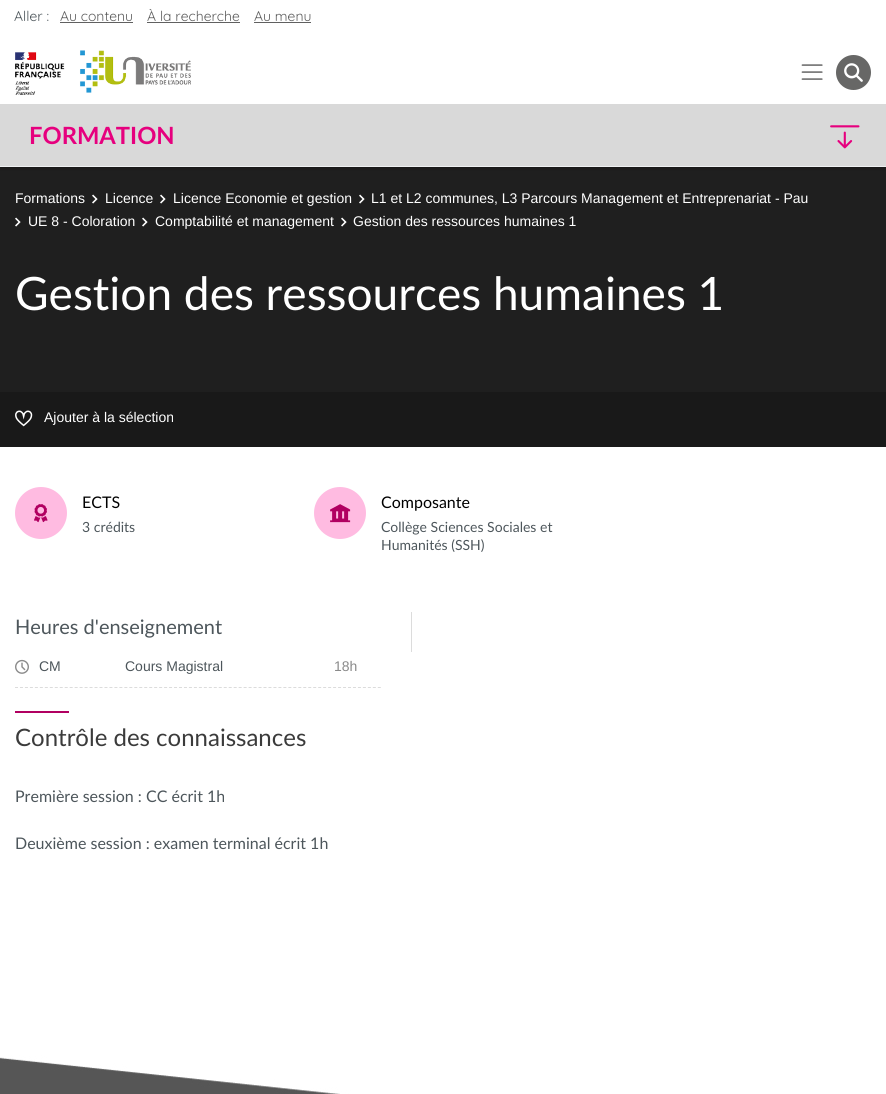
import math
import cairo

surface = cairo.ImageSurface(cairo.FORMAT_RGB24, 886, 1094)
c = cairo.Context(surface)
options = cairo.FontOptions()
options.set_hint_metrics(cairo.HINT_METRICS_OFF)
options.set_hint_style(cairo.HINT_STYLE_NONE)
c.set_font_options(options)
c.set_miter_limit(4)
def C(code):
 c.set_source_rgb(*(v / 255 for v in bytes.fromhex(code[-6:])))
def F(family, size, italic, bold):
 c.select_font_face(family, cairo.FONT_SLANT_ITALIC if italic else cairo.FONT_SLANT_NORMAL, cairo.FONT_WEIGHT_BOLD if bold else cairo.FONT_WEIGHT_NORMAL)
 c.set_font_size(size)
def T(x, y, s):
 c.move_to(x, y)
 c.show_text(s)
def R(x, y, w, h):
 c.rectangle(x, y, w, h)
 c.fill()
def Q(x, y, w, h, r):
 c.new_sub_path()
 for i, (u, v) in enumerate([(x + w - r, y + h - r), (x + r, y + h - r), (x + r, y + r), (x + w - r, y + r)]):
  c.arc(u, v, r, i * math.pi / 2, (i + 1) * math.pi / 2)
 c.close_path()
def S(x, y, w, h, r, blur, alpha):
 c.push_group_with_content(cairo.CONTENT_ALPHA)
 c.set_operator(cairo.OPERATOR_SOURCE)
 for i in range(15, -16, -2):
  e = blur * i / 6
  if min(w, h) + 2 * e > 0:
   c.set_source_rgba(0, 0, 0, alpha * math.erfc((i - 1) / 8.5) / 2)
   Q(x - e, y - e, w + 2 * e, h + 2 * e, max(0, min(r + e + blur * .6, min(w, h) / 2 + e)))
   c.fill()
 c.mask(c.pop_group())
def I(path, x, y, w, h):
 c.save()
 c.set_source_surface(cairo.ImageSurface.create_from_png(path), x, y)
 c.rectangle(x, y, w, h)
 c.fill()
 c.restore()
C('ffffff')
c.paint()
c.save()
c.rectangle(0,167,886,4)
c.clip()
C('8a8a8a')
S(0,0,886,166,0,2.5,1)
c.restore()
F('Quicksand Light',14,0,0)
C('4d565b')
T(14,21,'Aller :')
C('606060')
T(60,21,'Au contenu')
R(60,22,73,1)
T(147,21,'À la recherche')
R(147,22,93,1)
T(254,21,'Au menu')
R(254,22,57,1)
I('1.png',15,50,176,45)
I('2.png',801,64,22,16)
I('3.png',836,55,35,35)
C('d9d9d9')
R(0,104,886,62)
F('Lato',23.75,0,1)
C('e6007e')
T(29,144,'FORMATION')
I('4.png',830,125,30,24)
C('eff1f2')
R(0,166,886,1)
c.set_source_rgba(0,0,0,0.8)
R(0,167,886,225)
c.set_source_rgba(0,0,0,0.4)
R(0,167,886,225)
F('Liberation Sans',14,0,0)
C('ffffff')
T(15,203,'Formations')
I('5.png',92,194,6,10)
T(105,203,'Licence')
I('5.png',160,194,6,10)
T(173,203,'Licence Economie et gestion')
I('5.png',359,194,6,10)
T(371,203,'L1 et L2 communes, L3 Parcours Management et Entreprenariat - Pau')
I('5.png',15,217,6,10)
T(28,226,'UE 8 - Coloration')
I('5.png',142,217,6,10)
T(155,226,'Comptabilité et management')
I('5.png',341,217,6,10)
T(353,226,'Gestion des ressources humaines 1')
F('Lato',46,0,0)
T(15,310,'Gestion des ressources humaines 1')
C('191919')
R(0,392,886,55)
I('6.png',15,410,18,17)
F('Liberation Sans',14,0,0)
C('ffffff')
T(44,422,'Ajouter à la sélection')
C('ffbbe1')
c.new_path()
c.arc(41,513,26,0,2 * math.pi)
c.fill()
I('7.png',34,504,14,19)
F('Lato',16,0,0)
C('000000')
T(82,508,'ECTS')
F('Lato',14,0,0)
C('4d565b')
T(82,532,'3 crédits')
C('ffbbe1')
c.new_path()
c.arc(340,513,26,0,2 * math.pi)
c.fill()
I('8.png',330,504,21,19)
F('Lato',16,0,0)
C('000000')
T(381,508,'Composante')
F('Lato',14,0,0)
C('4d565b')
T(381,532,'Collège Sciences Sociales et')
T(381,550,'Humanités (SSH)')
F('Lato',20,0,0)
T(15,634,'Heures d\'enseignement')
c.new_path()
c.move_to(15,687.5)
c.line_to(381,687.5)
C('dcdcdc')
c.set_line_width(1)
c.set_dash([3,1.97])
c.stroke()
I('9.png',15,659,14,15)
F('Liberation Sans',14,0,0)
C('4d565b')
T(39,671,'CM')
T(125,671,'Cours Magistral')
C('8a8a8a')
T(334,671,'18h')
C('b10061')
R(15,711,54,2)
F('Lato',24,0,0)
C('3b3b3b')
T(15,746,'Contrôle des connaissances')
F('Lato',16,0,0)
C('4d565b')
T(15,802,'Première session : CC écrit 1h')
T(15,849,'Deuxième session : examen terminal écrit 1h')
C('dcdcdc')
R(411,612,1,40)
I('10.png',0,991,886,103)
surface.write_to_png('o.png')
